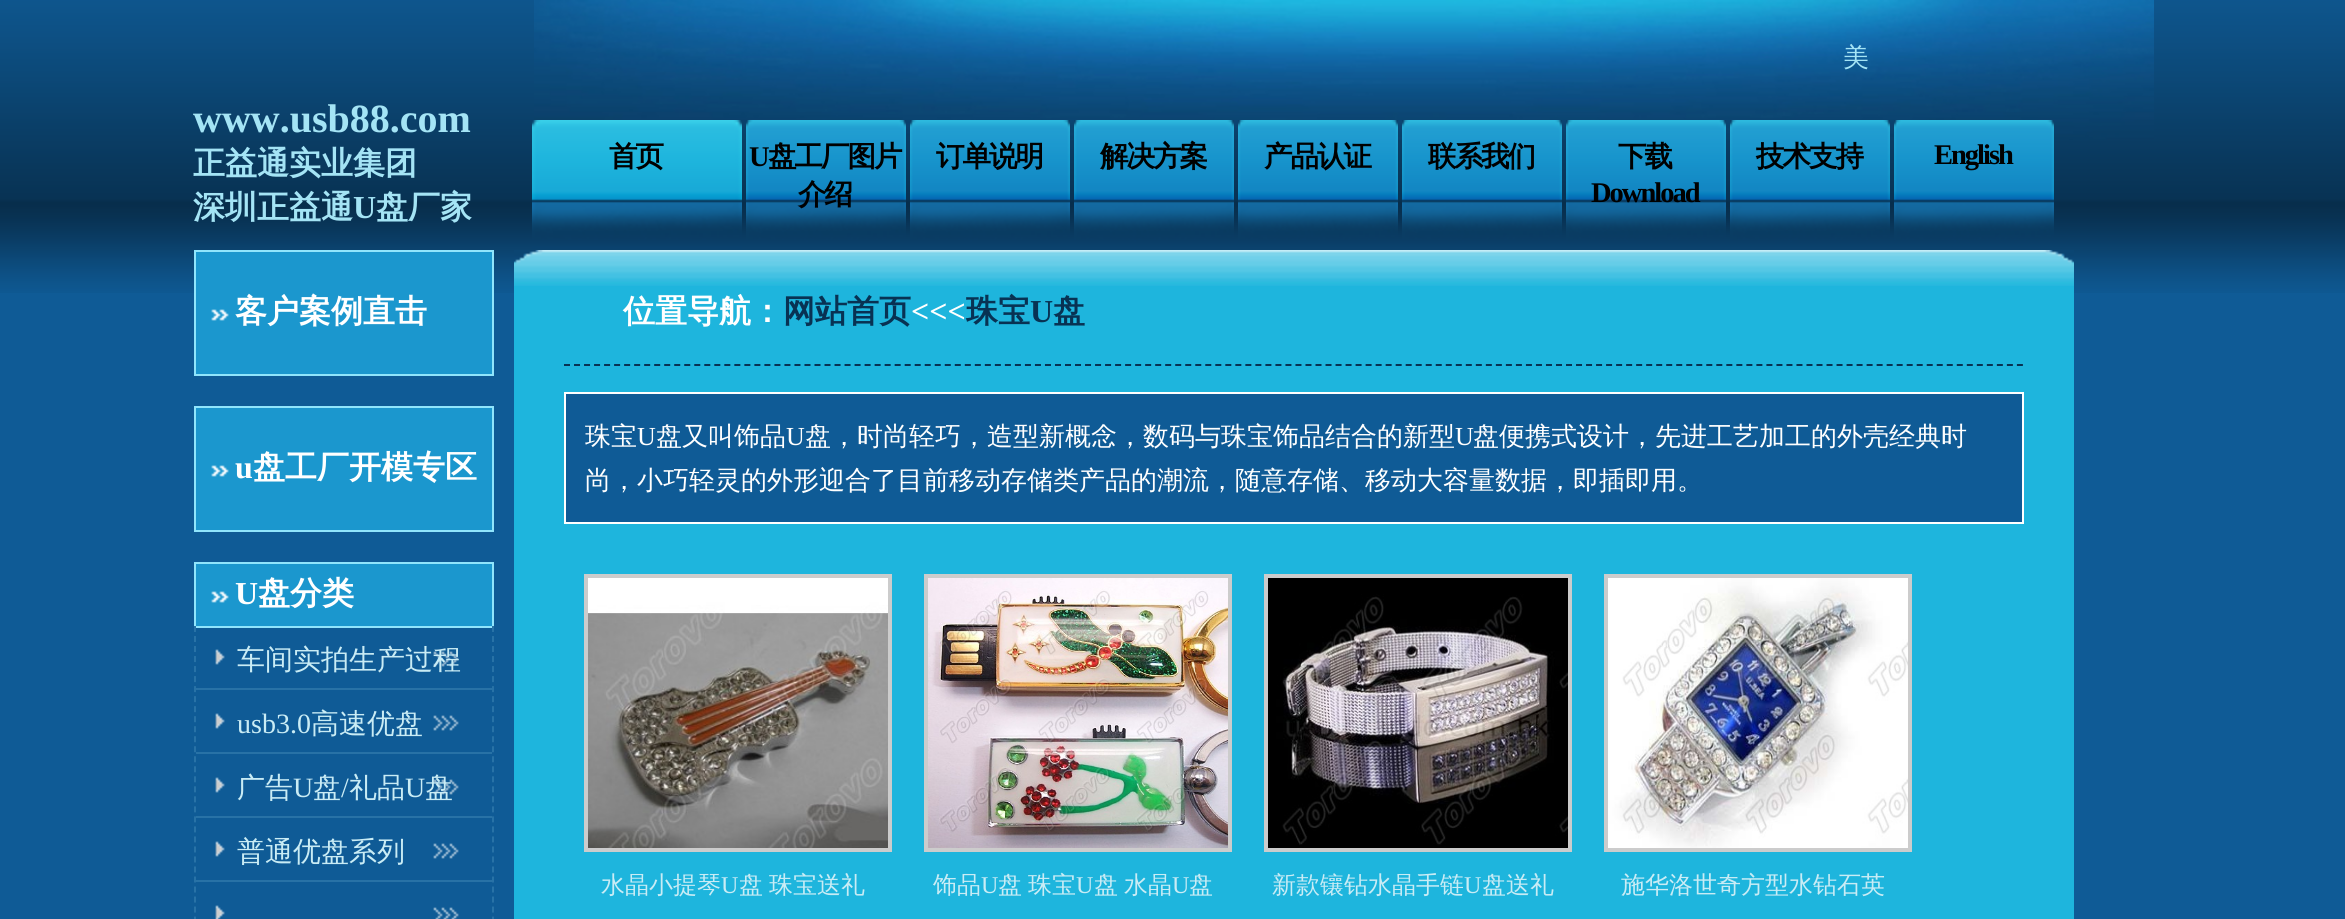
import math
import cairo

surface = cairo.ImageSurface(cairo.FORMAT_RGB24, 2345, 919)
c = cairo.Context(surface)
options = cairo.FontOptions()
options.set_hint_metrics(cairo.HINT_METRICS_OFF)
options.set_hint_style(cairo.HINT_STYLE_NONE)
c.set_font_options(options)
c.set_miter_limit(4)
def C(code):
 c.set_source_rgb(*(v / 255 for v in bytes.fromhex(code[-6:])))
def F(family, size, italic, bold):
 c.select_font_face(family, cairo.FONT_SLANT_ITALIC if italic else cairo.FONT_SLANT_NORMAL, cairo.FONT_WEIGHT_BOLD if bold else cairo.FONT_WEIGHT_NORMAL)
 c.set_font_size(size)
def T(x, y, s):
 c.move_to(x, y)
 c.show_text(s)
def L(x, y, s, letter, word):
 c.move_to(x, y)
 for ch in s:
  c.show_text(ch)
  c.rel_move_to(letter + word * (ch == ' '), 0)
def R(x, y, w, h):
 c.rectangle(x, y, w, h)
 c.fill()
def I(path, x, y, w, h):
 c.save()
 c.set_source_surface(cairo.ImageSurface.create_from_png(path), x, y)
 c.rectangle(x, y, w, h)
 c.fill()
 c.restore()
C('0f5b96')
c.paint()
I('1.png',0,0,2345,293)
I('2.png',534,0,1620,140)
F('WenQuanYi Zen Hei Medium',26,0,0)
C('a4e4f5')
T(1843,66,'美')
F('Liberation Serif',40,0,1)
T(193,132,'www.usb88.com')
F('WenQuanYi Zen Hei',32,0,1)
T(193,174,'正益通实业集团')
T(193,218,'深圳正益通')
F('Liberation Serif',32,0,1)
T(353,218,'U')
F('WenQuanYi Zen Hei',32,0,1)
T(376,218,'盘厂家')
I('3.png',532,120,210,130)
F('WenQuanYi Zen Hei',28.5,0,1)
C('000000')
L(609,166,'首页',-2,0)
I('4.png',746,120,160,130)
F('Liberation Serif',28.5,0,1)
L(749,166,'U',-2,0)
F('WenQuanYi Zen Hei',28.5,0,1)
L(768,166,'盘工厂图片',-2,0)
L(798,204,'介绍',-2,0)
I('4.png',910,120,160,130)
L(936,166,'订单说明',-2,0)
I('4.png',1074,120,160,130)
L(1100,166,'解决方案',-2,0)
I('4.png',1238,120,160,130)
L(1264,166,'产品认证',-2,0)
I('4.png',1402,120,160,130)
L(1428,166,'联系我们',-2,0)
I('4.png',1566,120,160,130)
L(1618,166,'下载',-2,0)
F('Liberation Serif',28.5,0,1)
L(1591,202,'Download',-2,0)
I('4.png',1730,120,160,130)
F('WenQuanYi Zen Hei',28.5,0,1)
L(1756,166,'技术支持',-2,0)
I('4.png',1894,120,160,130)
F('Liberation Serif',28.5,0,1)
L(1934,164,'English',-2,0)
C('1b97ce')
R(196,252,296,122)
I('5.png',211,309,18,12)
c.rectangle(195,251,298,124)
C('90e5fc')
c.stroke()
F('WenQuanYi Zen Hei',32,0,1)
C('ffffff')
T(235,322,'客户案例直击')
C('1b97ce')
R(196,408,296,122)
I('5.png',211,465,18,12)
c.rectangle(195,407,298,124)
C('90e5fc')
c.stroke()
F('Liberation Serif',32,0,1)
C('ffffff')
T(235,478,'u')
F('WenQuanYi Zen Hei',32,0,1)
T(253,478,'盘工厂开模专区')
C('1b97ce')
R(196,564,296,62)
I('5.png',211,591,18,12)
c.rectangle(195,563,298,64)
C('90e5fc')
c.stroke()
F('Liberation Serif',32,0,1)
C('ffffff')
T(235,604,'U')
F('WenQuanYi Zen Hei',32,0,1)
T(258,604,'盘分类')
c.new_path()
c.move_to(493,626)
c.line_to(493,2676)
C('2872a6')
c.set_dash([6,4.02])
c.stroke()
c.new_path()
c.move_to(195,626)
c.line_to(195,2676)
c.stroke()
I('6.png',215,649,244,18)
R(196,688,296,2)
F('WenQuanYi Zen Hei Medium',28,0,0)
C('c9ecf5')
T(237,669,'车间实拍生产过程')
I('6.png',215,713,244,18)
C('2872a6')
R(196,752,296,2)
F('Liberation Serif',28,0,0)
C('c9ecf5')
T(237,733,'usb3.0')
F('WenQuanYi Zen Hei Medium',28,0,0)
T(311,733,'高速优盘')
I('6.png',215,777,244,18)
C('2872a6')
R(196,816,296,2)
C('c9ecf5')
T(237,797,'广告')
F('Liberation Serif',28,0,0)
T(293,797,'U')
F('WenQuanYi Zen Hei Medium',28,0,0)
T(313,797,'盘')
F('Liberation Serif',28,0,0)
T(341,797,'/')
F('WenQuanYi Zen Hei Medium',28,0,0)
T(349,797,'礼品')
F('Liberation Serif',28,0,0)
T(405,797,'U')
F('WenQuanYi Zen Hei Medium',28,0,0)
T(425,797,'盘')
I('6.png',215,841,244,18)
C('2872a6')
R(196,880,296,2)
C('c9ecf5')
T(237,861,'普通优盘系列')
I('7.png',215,905,244,14)
C('1eb5dd')
R(514,286,1560,633)
I('8.png',514,250,1560,36)
c.new_path()
c.move_to(564,365)
c.line_to(2024,365)
C('083253')
c.stroke()
F('WenQuanYi Zen Hei',32,0,1)
C('ffffff')
T(623,322,'位置导航：')
C('083253')
T(783,322,'网站首页')
F('Liberation Serif',32,0,1)
C('ffffff')
T(911,322,'<<<')
F('WenQuanYi Zen Hei',32,0,1)
C('083253')
T(966,322,'珠宝')
F('Liberation Serif',32,0,1)
T(1030,322,'U')
F('WenQuanYi Zen Hei',32,0,1)
T(1053,322,'盘')
C('0f5b96')
c.rectangle(565,393,1458,130)
c.fill_preserve()
C('ffffff')
c.set_dash([])
c.stroke()
F('WenQuanYi Zen Hei Medium',26,0,0)
T(585,445,'珠宝')
F('Liberation Serif',26,0,0)
T(637,445,'U')
F('WenQuanYi Zen Hei Medium',26,0,0)
T(656,445,'盘又叫饰品')
F('Liberation Serif',26,0,0)
T(786,445,'U')
F('WenQuanYi Zen Hei Medium',26,0,0)
T(805,445,'盘，时尚轻巧，造型新概念，数码与珠宝饰品结合的新型')
F('Liberation Serif',26,0,0)
T(1455,445,'U')
F('WenQuanYi Zen Hei Medium',26,0,0)
T(1473,445,'盘便携式设计，先进工艺加工的外壳经典时')
T(585,489,'尚，小巧轻灵的外形迎合了目前移动存储类产品的潮流，随意存储、移动大容量数据，即插即用。')
c.rectangle(586,576,304,274)
C('cccccc')
c.set_line_width(4)
c.stroke()
I('9.png',588,578,300,270)
F('WenQuanYi Zen Hei Medium',24,0,0)
C('c9ecf5')
T(601,893,'水晶小提琴')
F('Liberation Serif',24,0,0)
T(721,893,'U')
F('WenQuanYi Zen Hei Medium',24,0,0)
T(739,893,'盘')
T(769,893,'珠宝送礼')
c.rectangle(926,576,304,274)
C('cccccc')
c.stroke()
I('10.png',928,578,300,270)
C('c9ecf5')
T(933,893,'饰品')
F('Liberation Serif',24,0,0)
T(981,893,'U')
F('WenQuanYi Zen Hei Medium',24,0,0)
T(998,893,'盘')
T(1028,893,'珠宝')
F('Liberation Serif',24,0,0)
T(1076,893,'U')
F('WenQuanYi Zen Hei Medium',24,0,0)
T(1094,893,'盘')
T(1124,893,'水晶')
F('Liberation Serif',24,0,0)
T(1172,893,'U')
F('WenQuanYi Zen Hei Medium',24,0,0)
T(1189,893,'盘')
c.rectangle(1266,576,304,274)
C('cccccc')
c.stroke()
I('11.png',1268,578,300,270)
C('c9ecf5')
T(1272,893,'新款镶钻水晶手链')
F('Liberation Serif',24,0,0)
T(1464,893,'U')
F('WenQuanYi Zen Hei Medium',24,0,0)
T(1482,893,'盘送礼')
c.rectangle(1606,576,304,274)
C('cccccc')
c.stroke()
I('12.png',1608,578,300,270)
C('c9ecf5')
T(1621,893,'施华洛世奇方型水钻石英')
surface.write_to_png('o.png')
